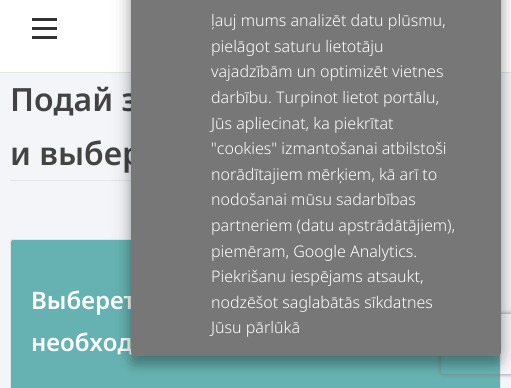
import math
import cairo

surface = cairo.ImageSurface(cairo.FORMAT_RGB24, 511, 388)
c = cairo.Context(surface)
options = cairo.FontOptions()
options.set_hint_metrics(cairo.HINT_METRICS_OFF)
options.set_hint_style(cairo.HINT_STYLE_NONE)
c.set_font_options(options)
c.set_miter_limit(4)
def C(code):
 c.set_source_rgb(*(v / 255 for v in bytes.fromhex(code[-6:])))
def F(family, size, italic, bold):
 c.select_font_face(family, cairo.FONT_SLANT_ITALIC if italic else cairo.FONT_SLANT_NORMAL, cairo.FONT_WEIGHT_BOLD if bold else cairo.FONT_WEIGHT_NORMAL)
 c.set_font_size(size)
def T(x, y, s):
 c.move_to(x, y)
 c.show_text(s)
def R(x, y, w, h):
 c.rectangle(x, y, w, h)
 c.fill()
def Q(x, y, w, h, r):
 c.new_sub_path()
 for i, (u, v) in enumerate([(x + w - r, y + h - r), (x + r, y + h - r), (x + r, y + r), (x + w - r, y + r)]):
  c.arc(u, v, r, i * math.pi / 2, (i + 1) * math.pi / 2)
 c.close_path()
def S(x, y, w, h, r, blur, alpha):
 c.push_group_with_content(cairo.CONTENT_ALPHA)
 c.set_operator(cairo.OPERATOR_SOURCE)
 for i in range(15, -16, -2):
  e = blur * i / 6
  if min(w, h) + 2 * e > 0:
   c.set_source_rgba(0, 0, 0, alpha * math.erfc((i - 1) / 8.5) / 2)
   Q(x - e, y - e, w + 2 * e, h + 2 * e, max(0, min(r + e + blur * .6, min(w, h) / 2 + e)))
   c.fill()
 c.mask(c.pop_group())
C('f3f5f9')
c.paint()
C('ffffff')
R(0,0,511,72)
C('e5e5e5')
R(0,72,511,1)
C('333333')
R(32,18,25,3)
R(32,27,25,3)
R(32,36,25,3)
F('Noto Sans SemiBold',32,0,0)
C('434343')
T(10,111,'Подай з')
T(10,165,'и выбер')
C('e5e5e5')
R(10,180,121,1)
Q(10.5,239.5,490,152,2.5)
c.set_line_width(1)
c.stroke()
C('66b2b2')
c.new_path()
c.move_to(13,240)
c.line_to(498,240)
c.curve_to(499,240,500,241,500,242)
c.line_to(500,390)
c.line_to(11,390)
c.line_to(11,242)
c.curve_to(11,241,12,240,13,240)
c.close_path()
c.fill()
F('Noto Sans SemiBold',24,0,0)
C('ffffff')
T(31,309,'Выберет')
T(31,351,'необход')
c.save()
c.set_fill_rule(cairo.FILL_RULE_EVEN_ODD)
c.new_path()
c.move_to(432,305)
c.line_to(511,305)
c.line_to(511,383)
c.line_to(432,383)
c.close_path()
c.move_to(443,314)
c.line_to(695,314)
c.curve_to(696,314,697,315,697,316)
c.line_to(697,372)
c.curve_to(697,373,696,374,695,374)
c.line_to(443,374)
c.curve_to(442,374,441,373,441,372)
c.line_to(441,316)
c.curve_to(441,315,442,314,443,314)
c.close_path()
c.clip()
C('808080')
S(441,314,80,60,2,2.5,1)
c.restore()
C('000000')
S(131,-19,370,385,4,5,.22)
S(131,-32,370,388,4,10,.25)
C('777777')
Q(131,-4,370,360,4)
c.fill()
F('Noto Sans Light',16,0,0)
C('ffffff')
T(211,26,'ļauj mums analizēt datu plūsmu,')
T(211,52,'pielāgot saturu lietotāju')
T(211,77,'vajadzībām un optimizēt vietnes')
T(211,103,'darbību. Turpinot lietot portālu,')
T(211,129,'Jūs apliecinat, ka piekrītat')
T(211,154,'"cookies" izmantošanai atbilstoši')
T(211,180,'norādītajiem mērķiem, kā arī to')
T(211,205,'nodošanai mūsu sadarbības')
T(211,231,'partneriem (datu apstrādātājiem),')
T(211,257,'piemēram, Google Analytics.')
T(211,282,'Piekrišanu iespējams atsaukt,')
T(211,308,'nodzēšot saglabātās sīkdatnes')
T(211,333,'Jūsu pārlūkā')
surface.write_to_png('o.png')
